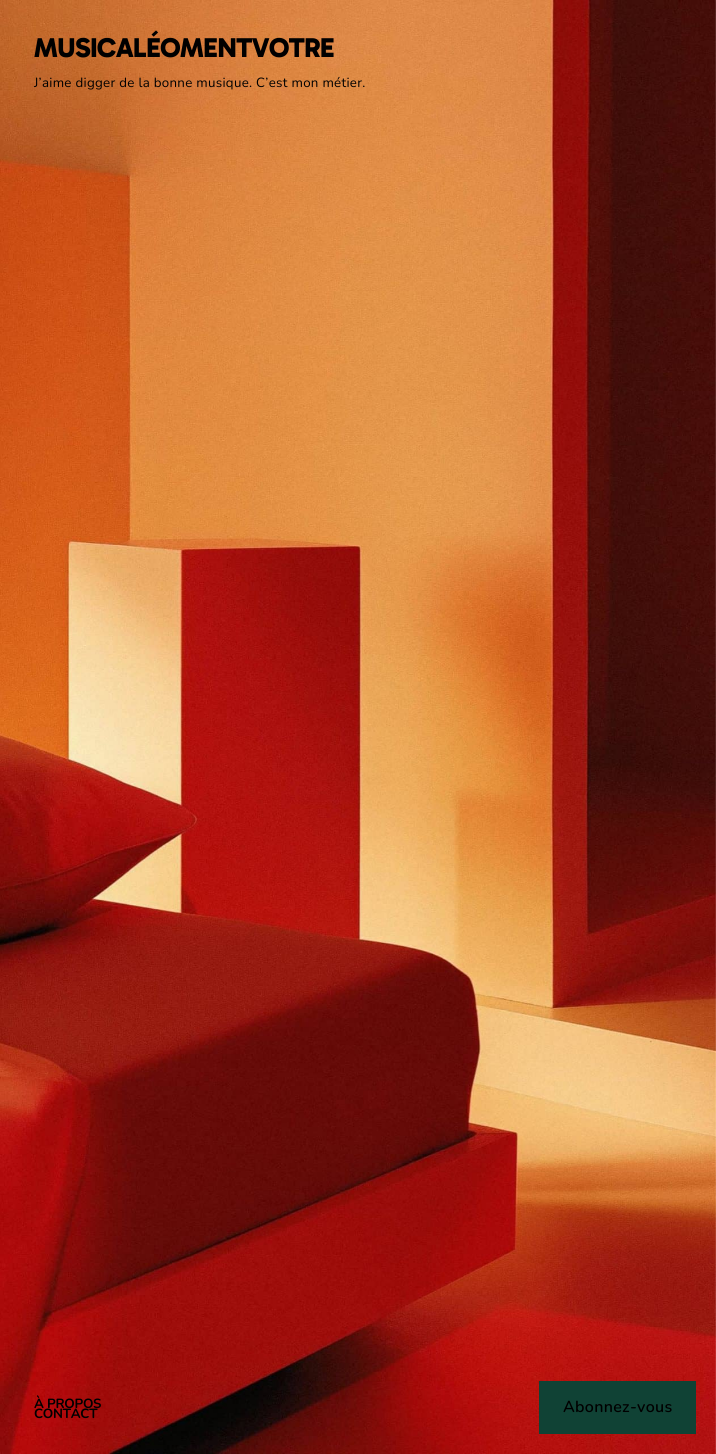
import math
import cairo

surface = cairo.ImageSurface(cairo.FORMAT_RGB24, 716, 1454)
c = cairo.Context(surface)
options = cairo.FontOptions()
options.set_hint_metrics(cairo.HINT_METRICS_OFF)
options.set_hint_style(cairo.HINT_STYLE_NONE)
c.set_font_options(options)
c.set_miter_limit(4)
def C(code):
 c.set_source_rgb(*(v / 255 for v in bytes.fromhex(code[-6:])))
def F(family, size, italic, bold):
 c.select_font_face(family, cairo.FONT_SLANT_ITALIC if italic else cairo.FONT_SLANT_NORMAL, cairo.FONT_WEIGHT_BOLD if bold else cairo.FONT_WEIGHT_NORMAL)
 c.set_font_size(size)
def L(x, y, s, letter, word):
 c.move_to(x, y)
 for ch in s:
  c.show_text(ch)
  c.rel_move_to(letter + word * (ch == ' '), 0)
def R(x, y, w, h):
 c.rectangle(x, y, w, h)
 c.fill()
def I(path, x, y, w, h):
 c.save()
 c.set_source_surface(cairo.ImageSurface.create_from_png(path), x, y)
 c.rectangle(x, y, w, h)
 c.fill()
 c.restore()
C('ffffff')
c.paint()
I('1.png',0,0,716,1454)
F('Gabarito ExtraBold',27.6,0,0)
C('000000')
L(34,57,'MUSICALÉOMENTVOTRE',-.5,0)
F('Nunito',13.3,0,0)
L(34,87,'J’aime digger de la bonne musique. C’est mon métier.',.3,0)
F('Nunito',13.3,0,1)
L(34,1408,'À PROPOS',-.25,0)
L(34,1418,'CONTACT',-.25,0)
C('104235')
R(539,1381,157,53)
F('Nunito SemiBold',16,0,0)
C('000000')
L(563,1412,'Abonnez-vous',.3,0)
surface.write_to_png('o.png')
